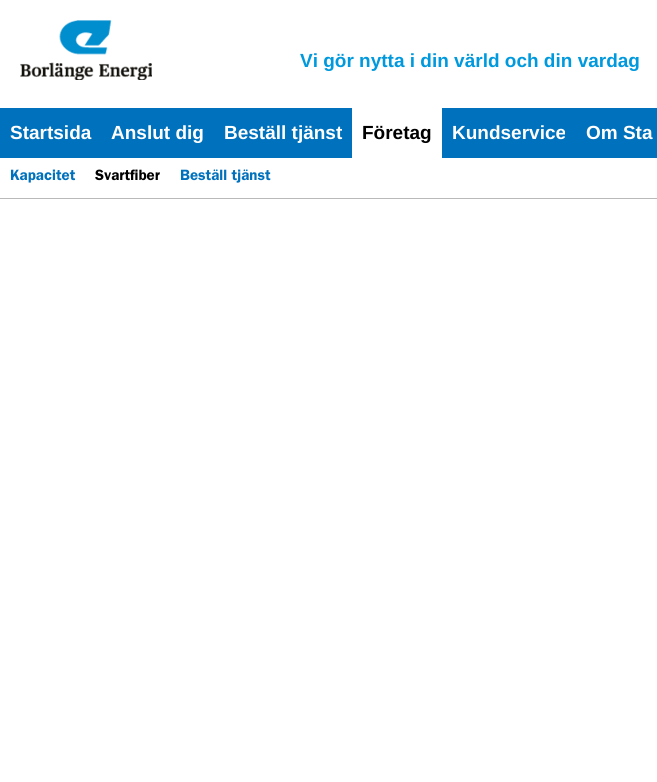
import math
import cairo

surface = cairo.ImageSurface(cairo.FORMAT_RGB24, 657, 782)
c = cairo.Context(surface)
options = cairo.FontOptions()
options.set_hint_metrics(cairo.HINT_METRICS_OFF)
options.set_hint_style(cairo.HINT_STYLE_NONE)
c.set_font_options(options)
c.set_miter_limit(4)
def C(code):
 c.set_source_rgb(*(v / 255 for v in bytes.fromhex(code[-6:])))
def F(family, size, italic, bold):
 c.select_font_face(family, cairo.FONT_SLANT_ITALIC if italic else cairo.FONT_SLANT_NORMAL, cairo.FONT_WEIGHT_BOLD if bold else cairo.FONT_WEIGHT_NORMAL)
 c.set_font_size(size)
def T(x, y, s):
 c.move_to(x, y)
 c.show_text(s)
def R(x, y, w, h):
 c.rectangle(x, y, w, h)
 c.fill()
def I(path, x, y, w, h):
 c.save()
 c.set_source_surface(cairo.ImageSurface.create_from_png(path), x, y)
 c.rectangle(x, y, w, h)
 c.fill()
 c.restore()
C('ffffff')
c.paint()
I('1.png',20,20,132,60)
F('Liberation Sans',19,0,1)
C('0099dd')
T(300,67,'Vi gör nytta i din värld och din vardag')
C('0071bc')
R(0,108,657,50)
C('ffffff')
T(10,139,'Startsida')
T(111,139,'Anslut dig')
T(224,139,'Beställ tjänst')
R(352,108,90,50)
C('000000')
T(362,139,'Företag')
C('ffffff')
T(452,139,'Kundservice')
T(586,139,'Om Sta')
C('b8bab9')
R(0,198,657,1)
F('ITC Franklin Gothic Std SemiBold',15,0,0)
C('0071bc')
T(10,180,'Kapacitet')
C('000000')
T(95,180,'Svartfiber')
C('0071bc')
T(180,180,'Beställ tjänst')
surface.write_to_png('o.png')
